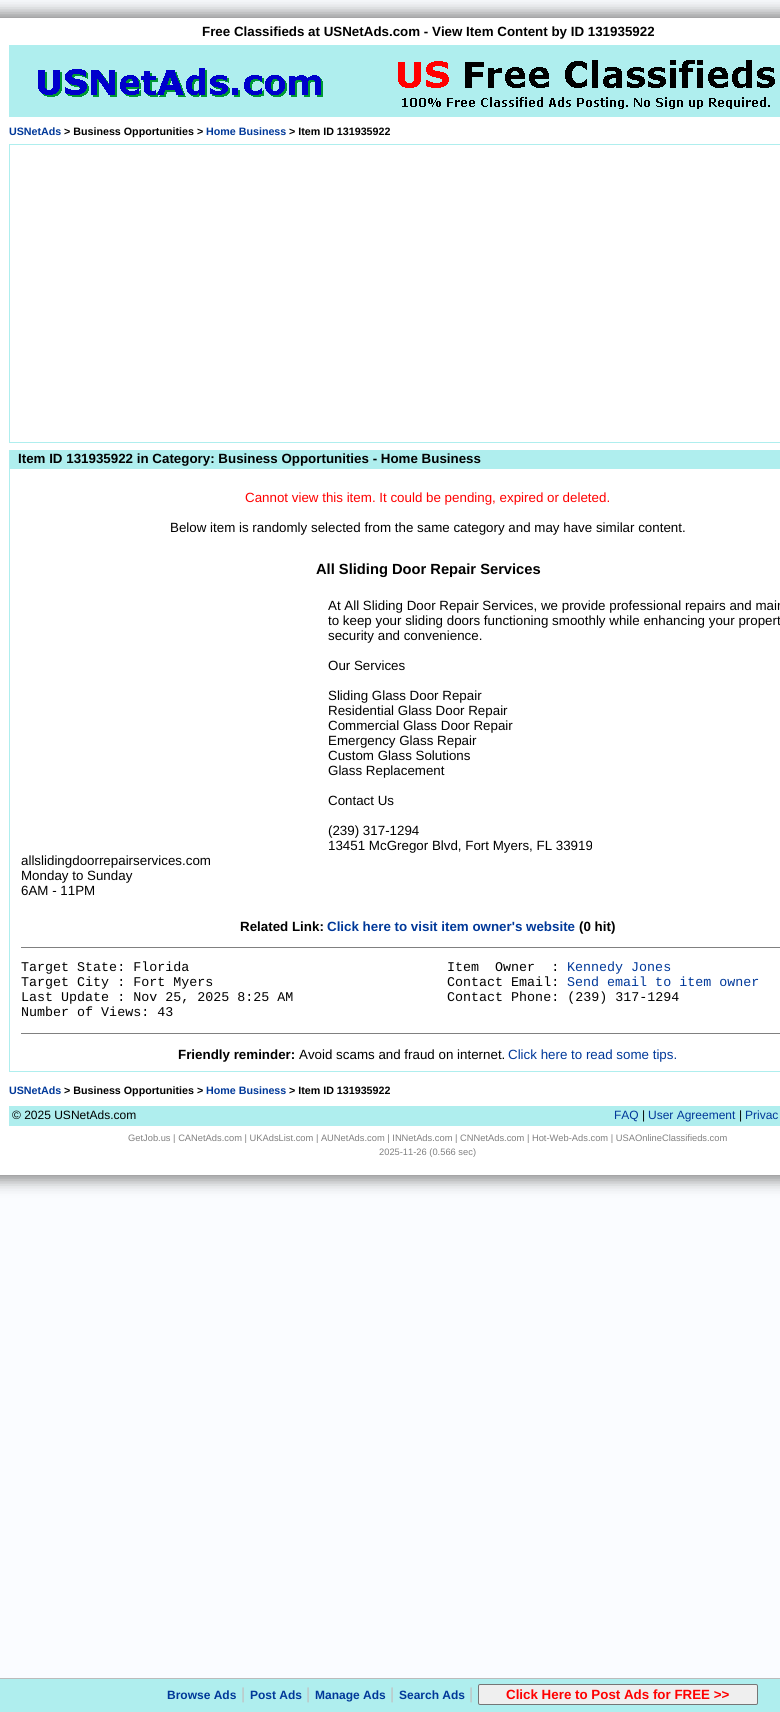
import math
import cairo

surface = cairo.ImageSurface(cairo.FORMAT_RGB24, 780, 1712)
c = cairo.Context(surface)
options = cairo.FontOptions()
options.set_hint_metrics(cairo.HINT_METRICS_OFF)
options.set_hint_style(cairo.HINT_STYLE_NONE)
c.set_font_options(options)
c.set_miter_limit(4)
def C(code):
 c.set_source_rgb(*(v / 255 for v in bytes.fromhex(code[-6:])))
def F(family, size, italic, bold):
 c.select_font_face(family, cairo.FONT_SLANT_ITALIC if italic else cairo.FONT_SLANT_NORMAL, cairo.FONT_WEIGHT_BOLD if bold else cairo.FONT_WEIGHT_NORMAL)
 c.set_font_size(size)
def T(x, y, s):
 c.move_to(x, y)
 c.show_text(s)
def R(x, y, w, h):
 c.rectangle(x, y, w, h)
 c.fill()
def Q(x, y, w, h, r):
 c.new_sub_path()
 for i, (u, v) in enumerate([(x + w - r, y + h - r), (x + r, y + h - r), (x + r, y + r), (x + w - r, y + r)]):
  c.arc(u, v, r, i * math.pi / 2, (i + 1) * math.pi / 2)
 c.close_path()
def S(x, y, w, h, r, blur, alpha):
 c.push_group_with_content(cairo.CONTENT_ALPHA)
 c.set_operator(cairo.OPERATOR_SOURCE)
 for i in range(15, -16, -2):
  e = blur * i / 6
  if min(w, h) + 2 * e > 0:
   c.set_source_rgba(0, 0, 0, alpha * math.erfc((i - 1) / 8.5) / 2)
   Q(x - e, y - e, w + 2 * e, h + 2 * e, max(0, min(r + e + blur * .6, min(w, h) / 2 + e)))
   c.fill()
 c.mask(c.pop_group())
def I(path, x, y, w, h):
 c.save()
 c.set_source_surface(cairo.ImageSurface.create_from_png(path), x, y)
 c.rectangle(x, y, w, h)
 c.fill()
 c.restore()
C('fafcff')
c.paint()
C('888888')
S(-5,13,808,1167,0,7.5,1)
C('ffffff')
R(0,18,780,1157)
F('Liberation Sans',13.35,0,1)
C('000000')
T(202,36,'Free Classifieds at USNetAds.com - View Item Content by ID 131935922')
C('afeeee')
R(9,45,771,72)
I('1.png',38,60,737,49)
F('Liberation Sans',10.7,0,1)
C('003899')
T(9,135,'USNetAds')
C('000000')
T(64,135,'> Business Opportunities >')
C('003899')
T(206,135,'Home Business')
C('000000')
T(289,135,'> Item ID 131935922')
C('afeeee')
R(9,144,771,299)
C('ffffff')
R(10,145,770,297)
C('afeeee')
R(9,450,771,622)
F('Liberation Sans',13.35,0,1)
C('000000')
T(18,463,'Item ID 131935922 in Category: Business Opportunities - Home Business')
C('ffffff')
R(10,469,770,602)
F('Liberation Sans',13.35,0,0)
C('ff0000')
T(245,502,'Cannot view this item. It could be pending, expired or deleted.')
C('000000')
T(170,532,'Below item is randomly selected from the same category and may have similar content.')
F('Liberation Sans',14.7,0,1)
T(316,574,'All Sliding Door Repair Services')
F('Liberation Sans',13.35,0,0)
T(328,610,'At All Sliding Door Repair Services, we provide professional repairs and main')
T(328,625,'to keep your sliding doors functioning smoothly while enhancing your propert')
T(328,640,'security and convenience.')
T(328,670,'Our Services')
T(328,700,'Sliding Glass Door Repair')
T(328,715,'Residential Glass Door Repair')
T(328,730,'Commercial Glass Door Repair')
T(328,745,'Emergency Glass Repair')
T(328,760,'Custom Glass Solutions')
T(328,775,'Glass Replacement')
T(328,805,'Contact Us')
T(328,835,'(239) 317-1294')
T(328,850,'13451 McGregor Blvd, Fort Myers, FL 33919')
T(21,865,'allslidingdoorrepairservices.com')
T(21,880,'Monday to Sunday')
T(21,895,'6AM - 11PM')
F('Liberation Sans',13.35,0,1)
T(240,931,'Related Link:')
C('003899')
T(327,931,'Click here to visit item owner\'s website')
C('000000')
T(579,931,'(0 hit)')
C('808080')
R(21,947,759,1)
F('Liberation Mono',13.35,0,0)
C('000000')
T(21,971,'Target State: Florida')
T(21,986,'Target City : Fort Myers')
T(21,1001,'Last Update : Nov 25, 2025 8:25 AM')
T(21,1016,'Number of Views: 43')
T(447,971,'Item  Owner  :')
C('003899')
T(567,971,'Kennedy Jones')
C('000000')
T(447,986,'Contact Email:')
C('003899')
T(567,986,'Send email to item owner')
C('000000')
T(447,1001,'Contact Phone: (239) 317-1294')
C('808080')
R(21,1033,759,1)
F('Liberation Sans',13.35,0,1)
C('000000')
T(178,1059,'Friendly reminder:')
F('Liberation Sans',13.35,0,0)
T(299,1059,'Avoid scams and fraud on internet.')
C('003899')
T(508,1059,'Click here to read some tips.')
F('Liberation Sans',10.7,0,1)
T(9,1094,'USNetAds')
C('000000')
T(64,1094,'> Business Opportunities >')
C('003899')
T(206,1094,'Home Business')
C('000000')
T(289,1094,'> Item ID 131935922')
C('afeeee')
R(9,1106,771,20)
F('Liberation Sans',12,0,0)
C('000000')
T(12,1119,'© 2025 USNetAds.com')
C('003899')
T(614,1119,'FAQ')
C('000000')
T(642,1119,'|')
C('003899')
T(648,1119,'User Agreement')
C('000000')
T(739,1119,'|')
C('003899')
T(745,1119,'Privac')
F('Liberation Sans',9.33,0,0)
C('808080')
T(128,1141,'GetJob.us | CANetAds.com | UKAdsList.com | AUNetAds.com | INNetAds.com | CNNetAds.com | Hot-Web-Ads.com | USAOnlineClassifieds.com')
T(379,1155,'2025-11-26 (0.566 sec)')
C('afeeee')
R(0,1679,780,33)
C('bbbbbb')
R(0,1678,780,1)
F('Liberation Sans',12,0,1)
C('003899')
T(167,1699,'Browse Ads')
F('Liberation Sans',16,0,0)
C('c0c0c0')
T(241,1699,'|')
F('Liberation Sans',12,0,1)
C('003899')
T(250,1699,'Post Ads')
F('Liberation Sans',16,0,0)
C('c0c0c0')
T(306,1699,'|')
F('Liberation Sans',12,0,1)
C('003899')
T(315,1699,'Manage Ads')
F('Liberation Sans',16,0,0)
C('c0c0c0')
T(390,1699,'|')
F('Liberation Sans',12,0,1)
C('003899')
T(399,1699,'Search Ads')
F('Liberation Sans',16,0,0)
C('c0c0c0')
T(469,1699,'|')
C('efefef')
Q(478.5,1684.5,279,20,1.5)
c.fill_preserve()
C('767676')
c.set_line_width(1)
c.stroke()
F('Liberation Sans',13.35,0,1)
C('ff0000')
T(506,1699,'Click Here to Post Ads for FREE >>')
surface.write_to_png('o.png')
